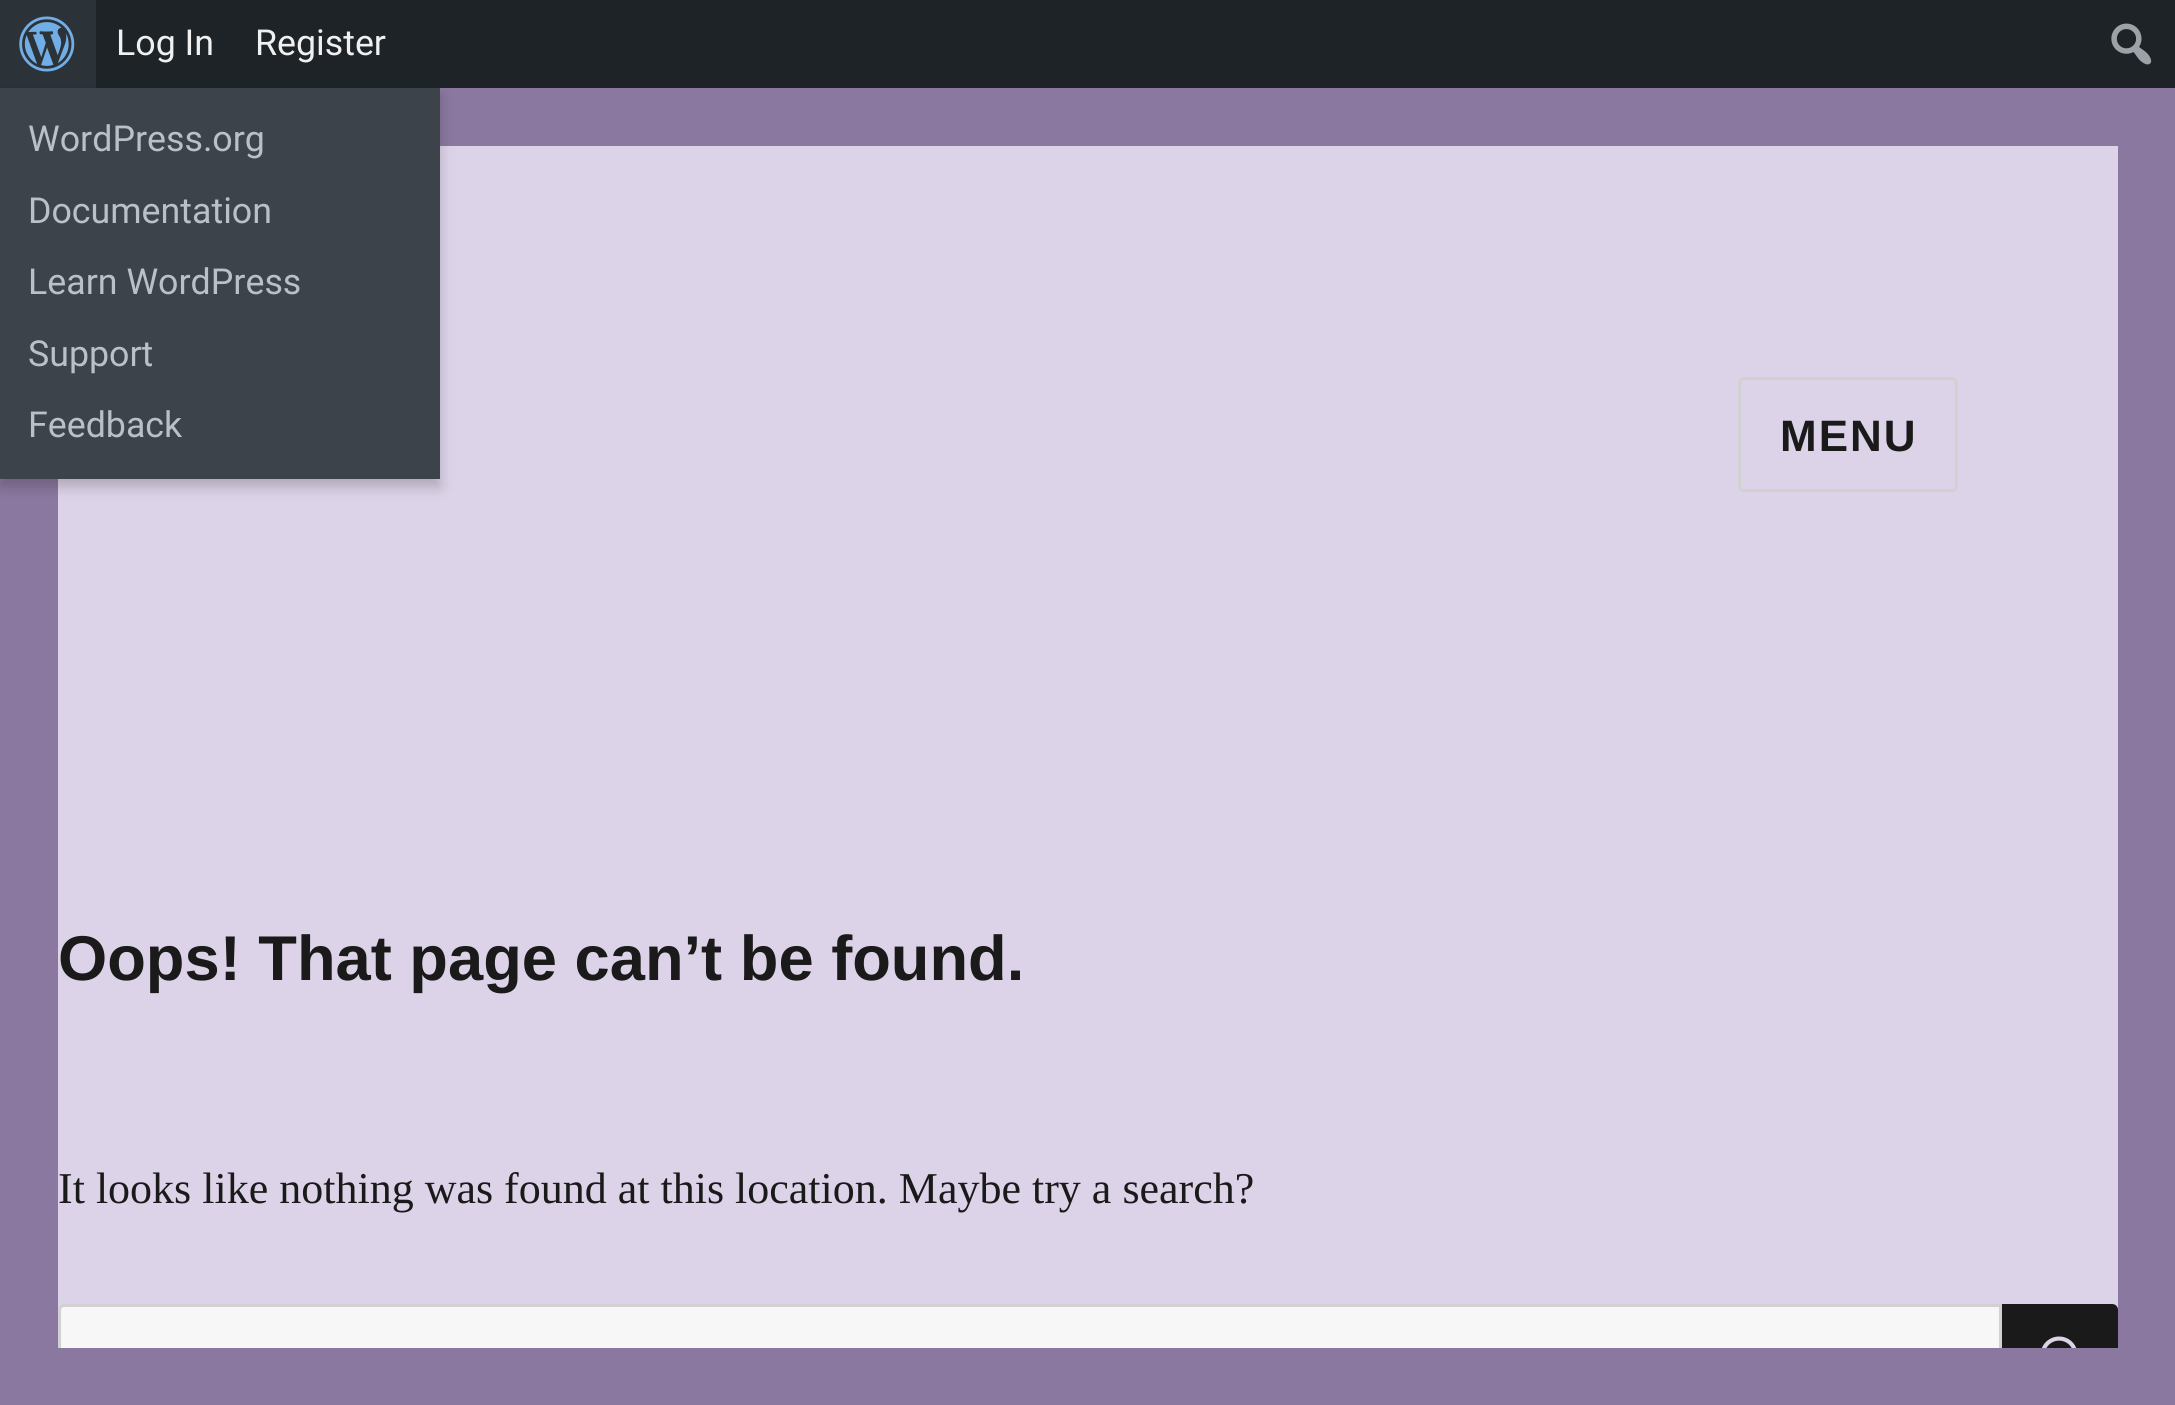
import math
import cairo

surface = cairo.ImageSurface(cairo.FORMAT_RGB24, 2175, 1405)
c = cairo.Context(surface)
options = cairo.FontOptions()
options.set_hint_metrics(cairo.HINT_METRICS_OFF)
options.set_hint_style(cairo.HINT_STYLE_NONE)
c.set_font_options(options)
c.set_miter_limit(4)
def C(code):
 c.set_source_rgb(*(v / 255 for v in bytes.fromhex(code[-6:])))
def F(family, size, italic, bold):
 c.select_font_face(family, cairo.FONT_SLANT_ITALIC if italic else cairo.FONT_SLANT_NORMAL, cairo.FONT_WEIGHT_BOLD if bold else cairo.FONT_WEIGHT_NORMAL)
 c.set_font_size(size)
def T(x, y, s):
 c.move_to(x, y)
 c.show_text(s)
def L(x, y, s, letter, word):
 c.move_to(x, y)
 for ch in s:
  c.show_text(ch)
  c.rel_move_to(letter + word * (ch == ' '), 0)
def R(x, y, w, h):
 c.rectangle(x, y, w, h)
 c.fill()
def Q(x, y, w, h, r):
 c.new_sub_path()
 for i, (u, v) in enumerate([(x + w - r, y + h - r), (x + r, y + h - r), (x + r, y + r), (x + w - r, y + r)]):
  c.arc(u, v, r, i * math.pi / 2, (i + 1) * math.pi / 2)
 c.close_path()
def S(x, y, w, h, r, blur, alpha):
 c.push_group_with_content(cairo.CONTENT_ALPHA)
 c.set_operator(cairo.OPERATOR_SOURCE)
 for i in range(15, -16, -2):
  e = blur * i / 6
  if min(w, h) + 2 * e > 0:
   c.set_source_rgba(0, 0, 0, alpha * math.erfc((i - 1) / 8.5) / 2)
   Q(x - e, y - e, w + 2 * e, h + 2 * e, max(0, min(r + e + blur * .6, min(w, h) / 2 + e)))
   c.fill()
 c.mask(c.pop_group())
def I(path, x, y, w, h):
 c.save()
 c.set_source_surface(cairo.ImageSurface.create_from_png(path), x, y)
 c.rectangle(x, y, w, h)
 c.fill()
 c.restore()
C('8b78a0')
c.paint()
C('1d2327')
R(96,0,2079,88)
F('Roboto',35.75,0,0)
C('f0f0f1')
T(116,55,'Log In')
T(255,55,'Register')
C('2c3338')
R(0,0,96,88)
I('1.png',19,16,56,56)
C('ddd3e8')
R(58,146,2060,1164)
C('000000')
S(0,96,440,391,0,7,.2)
C('3c434a')
R(0,88,440,391)
C('bac0c7')
T(28,151,'WordPress.org')
T(28,223,'Documentation')
T(28,294,'Learn WordPress')
T(28,366,'Support')
T(28,437,'Feedback')
I('2.png',2111,23,41,42)
Q(1739.5,378.5,217,112,4.5)
C('d1d1d1')
c.set_line_width(3)
c.stroke()
F('Liberation Sans',44,0,1)
C('1a1a1a')
L(1780,451,'MENU',2,0)
F('Liberation Sans',63.25,0,1)
T(58,980,'Oops! That page can’t be found.')
F('Liberation Serif',44,0,0)
T(58,1203,'It looks like nothing was found at this location. Maybe try a search?')
C('f7f7f7')
c.new_path()
c.move_to(64,1305.5)
c.line_to(2000.5,1305.5)
c.line_to(2000.5,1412.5)
c.line_to(64,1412.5)
c.curve_to(61.5,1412.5,59.5,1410.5,59.5,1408)
c.line_to(59.5,1310)
c.curve_to(59.5,1307.5,61.5,1305.5,64,1305.5)
c.close_path()
c.fill_preserve()
C('d1d1d1')
c.stroke()
C('1a1a1a')
c.new_path()
c.move_to(2002,1304)
c.line_to(2112,1304)
c.curve_to(2115.5,1304,2118,1306.5,2118,1310)
c.line_to(2118,1405)
c.curve_to(2118,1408.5,2115.5,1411,2112,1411)
c.line_to(2002,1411)
c.close_path()
c.fill()
I('3.png',2042,1336,35,12)
C('8b78a0')
R(58,1348,2060,57)
surface.write_to_png('o.png')
